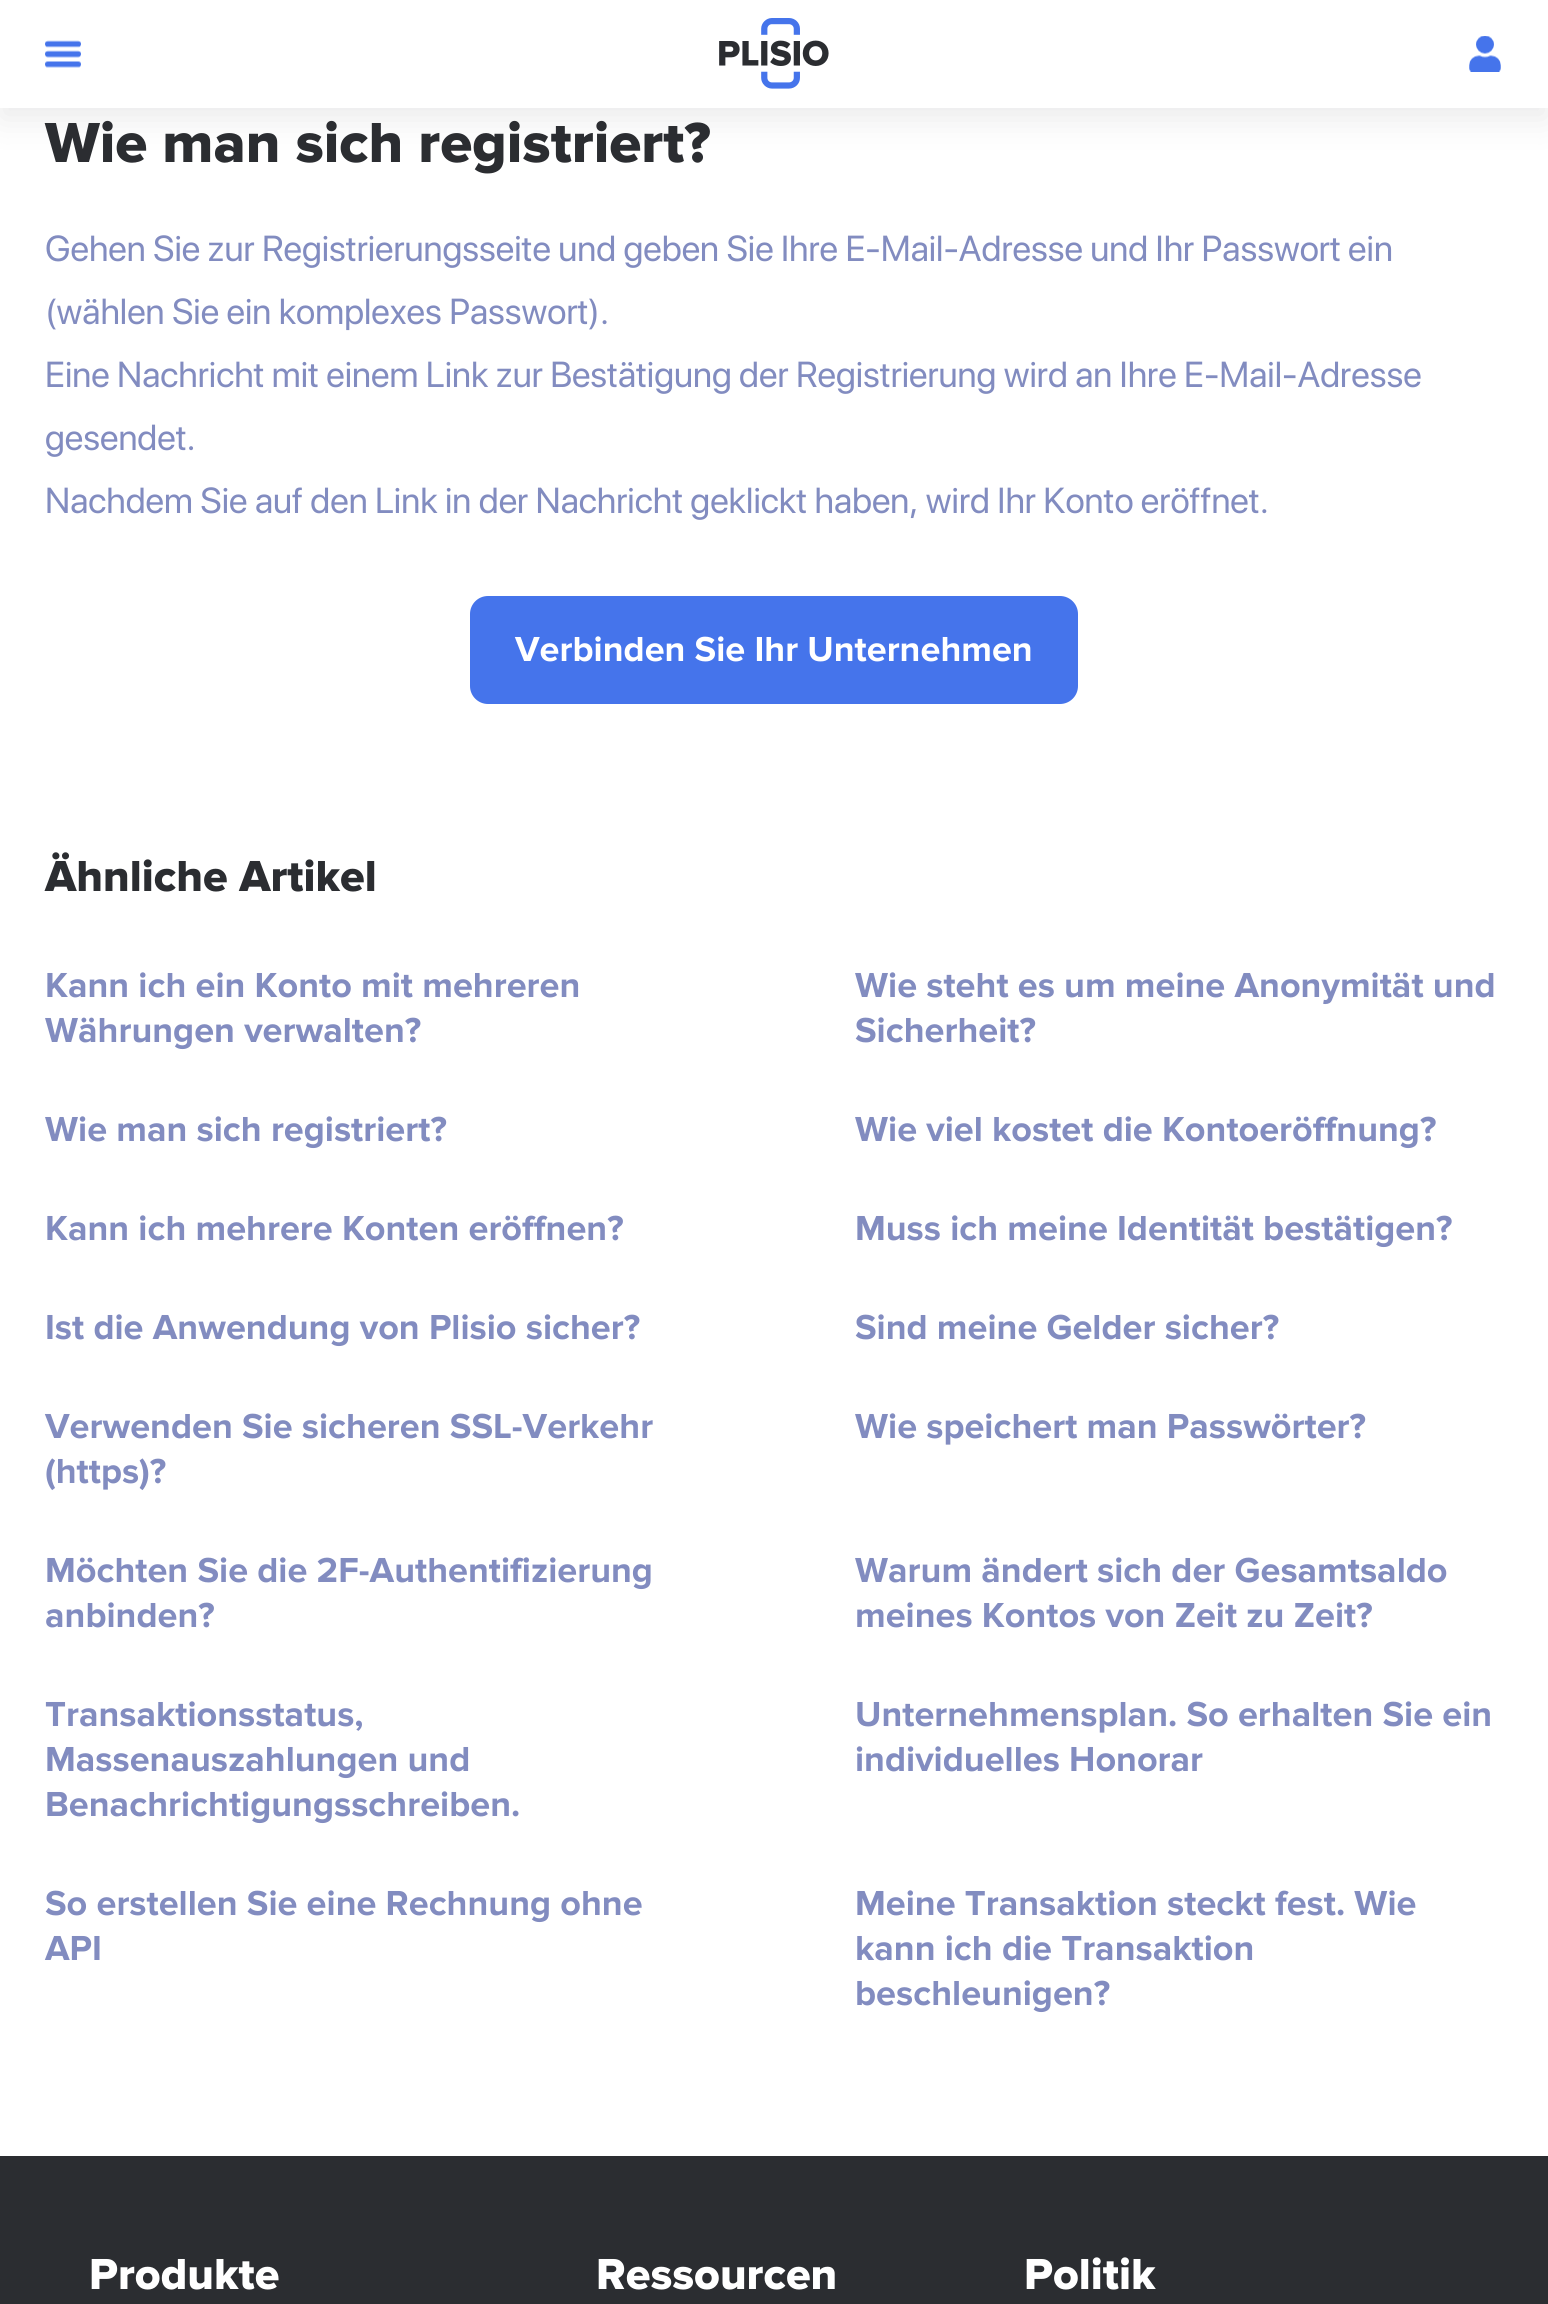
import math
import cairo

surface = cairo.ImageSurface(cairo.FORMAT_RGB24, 1548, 2304)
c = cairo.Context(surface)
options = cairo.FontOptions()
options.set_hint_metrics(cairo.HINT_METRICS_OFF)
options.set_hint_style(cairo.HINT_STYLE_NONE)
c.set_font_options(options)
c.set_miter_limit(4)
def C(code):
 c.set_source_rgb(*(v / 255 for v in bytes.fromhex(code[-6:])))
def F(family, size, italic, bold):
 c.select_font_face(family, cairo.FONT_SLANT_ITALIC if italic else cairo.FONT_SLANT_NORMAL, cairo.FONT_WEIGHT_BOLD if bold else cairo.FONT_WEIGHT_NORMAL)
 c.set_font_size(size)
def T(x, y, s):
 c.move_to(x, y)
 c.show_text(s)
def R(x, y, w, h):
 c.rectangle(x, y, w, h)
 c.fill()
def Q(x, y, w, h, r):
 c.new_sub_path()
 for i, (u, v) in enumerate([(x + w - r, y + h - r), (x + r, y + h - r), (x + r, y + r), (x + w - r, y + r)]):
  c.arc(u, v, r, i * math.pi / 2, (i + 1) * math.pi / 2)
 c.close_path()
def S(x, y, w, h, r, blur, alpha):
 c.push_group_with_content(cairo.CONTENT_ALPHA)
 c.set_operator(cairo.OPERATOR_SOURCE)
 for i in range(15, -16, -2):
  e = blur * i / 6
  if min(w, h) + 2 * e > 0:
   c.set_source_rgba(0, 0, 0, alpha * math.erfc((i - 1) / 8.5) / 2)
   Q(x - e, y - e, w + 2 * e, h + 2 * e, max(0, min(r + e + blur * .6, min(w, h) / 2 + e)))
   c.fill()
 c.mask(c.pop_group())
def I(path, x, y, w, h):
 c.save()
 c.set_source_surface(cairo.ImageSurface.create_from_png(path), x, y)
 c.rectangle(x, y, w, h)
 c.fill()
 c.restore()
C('ffffff')
c.paint()
C('2b2d31')
S(0,11,1548,108,0,17,.1)
C('ffffff')
R(0,0,1548,108)
I('1.png',45,40,36,28)
I('2.png',719,18,110,71)
I('3.png',1469,36,32,36)
F('Proxima Nova ExtraBold',58.5,0,0)
C('2b2d31')
T(45,162,'Wie man sich registriert?')
F('SF Pro Display',36,0,0)
C('828cc0')
T(45,261,'Gehen Sie zur Registrierungsseite und geben Sie Ihre E-Mail-Adresse und Ihr Passwort ein')
T(45,324,'(wählen Sie ein komplexes Passwort).')
T(45,387,'Eine Nachricht mit einem Link zur Bestätigung der Registrierung wird an Ihre E-Mail-Adresse')
T(45,450,'gesendet.')
T(45,513,'Nachdem Sie auf den Link in der Nachricht geklickt haben, wird Ihr Konto eröffnet.')
C('4574eb')
Q(470,596,608,108,18)
c.fill()
F('Proxima Nova',36,0,1)
C('ffffff')
T(515,661,'Verbinden Sie Ihr Unternehmen')
F('Proxima Nova ExtraBold',45,0,0)
C('2b2d31')
T(45,891,'Ähnliche Artikel')
F('Proxima Nova',36,0,1)
C('828cc0')
T(45,997,'Kann ich ein Konto mit mehreren')
T(45,1042,'Währungen verwalten?')
T(855,997,'Wie steht es um meine Anonymität und')
T(855,1042,'Sicherheit?')
T(45,1141,'Wie man sich registriert?')
T(855,1141,'Wie viel kostet die Kontoeröffnung?')
T(45,1240,'Kann ich mehrere Konten eröffnen?')
T(855,1240,'Muss ich meine Identität bestätigen?')
T(45,1339,'Ist die Anwendung von Plisio sicher?')
T(855,1339,'Sind meine Gelder sicher?')
T(45,1438,'Verwenden Sie sicheren SSL-Verkehr')
T(45,1483,'(https)?')
T(855,1438,'Wie speichert man Passwörter?')
T(45,1582,'Möchten Sie die 2F-Authentifizierung')
T(45,1627,'anbinden?')
T(855,1582,'Warum ändert sich der Gesamtsaldo')
T(855,1627,'meines Kontos von Zeit zu Zeit?')
T(45,1726,'Transaktionsstatus,')
T(45,1771,'Massenauszahlungen und')
T(45,1816,'Benachrichtigungsschreiben.')
T(855,1726,'Unternehmensplan. So erhalten Sie ein')
T(855,1771,'individuelles Honorar')
T(45,1915,'So erstellen Sie eine Rechnung ohne')
T(45,1960,'API')
T(855,1915,'Meine Transaktion steckt fest. Wie')
T(855,1960,'kann ich die Transaktion')
T(855,2005,'beschleunigen?')
C('2b2d31')
R(0,2156,1548,148)
F('Proxima Nova ExtraBold',45,0,0)
C('ffffff')
T(89,2289,'Produkte')
T(596,2289,'Ressourcen')
T(1024,2289,'Politik')
surface.write_to_png('o.png')
